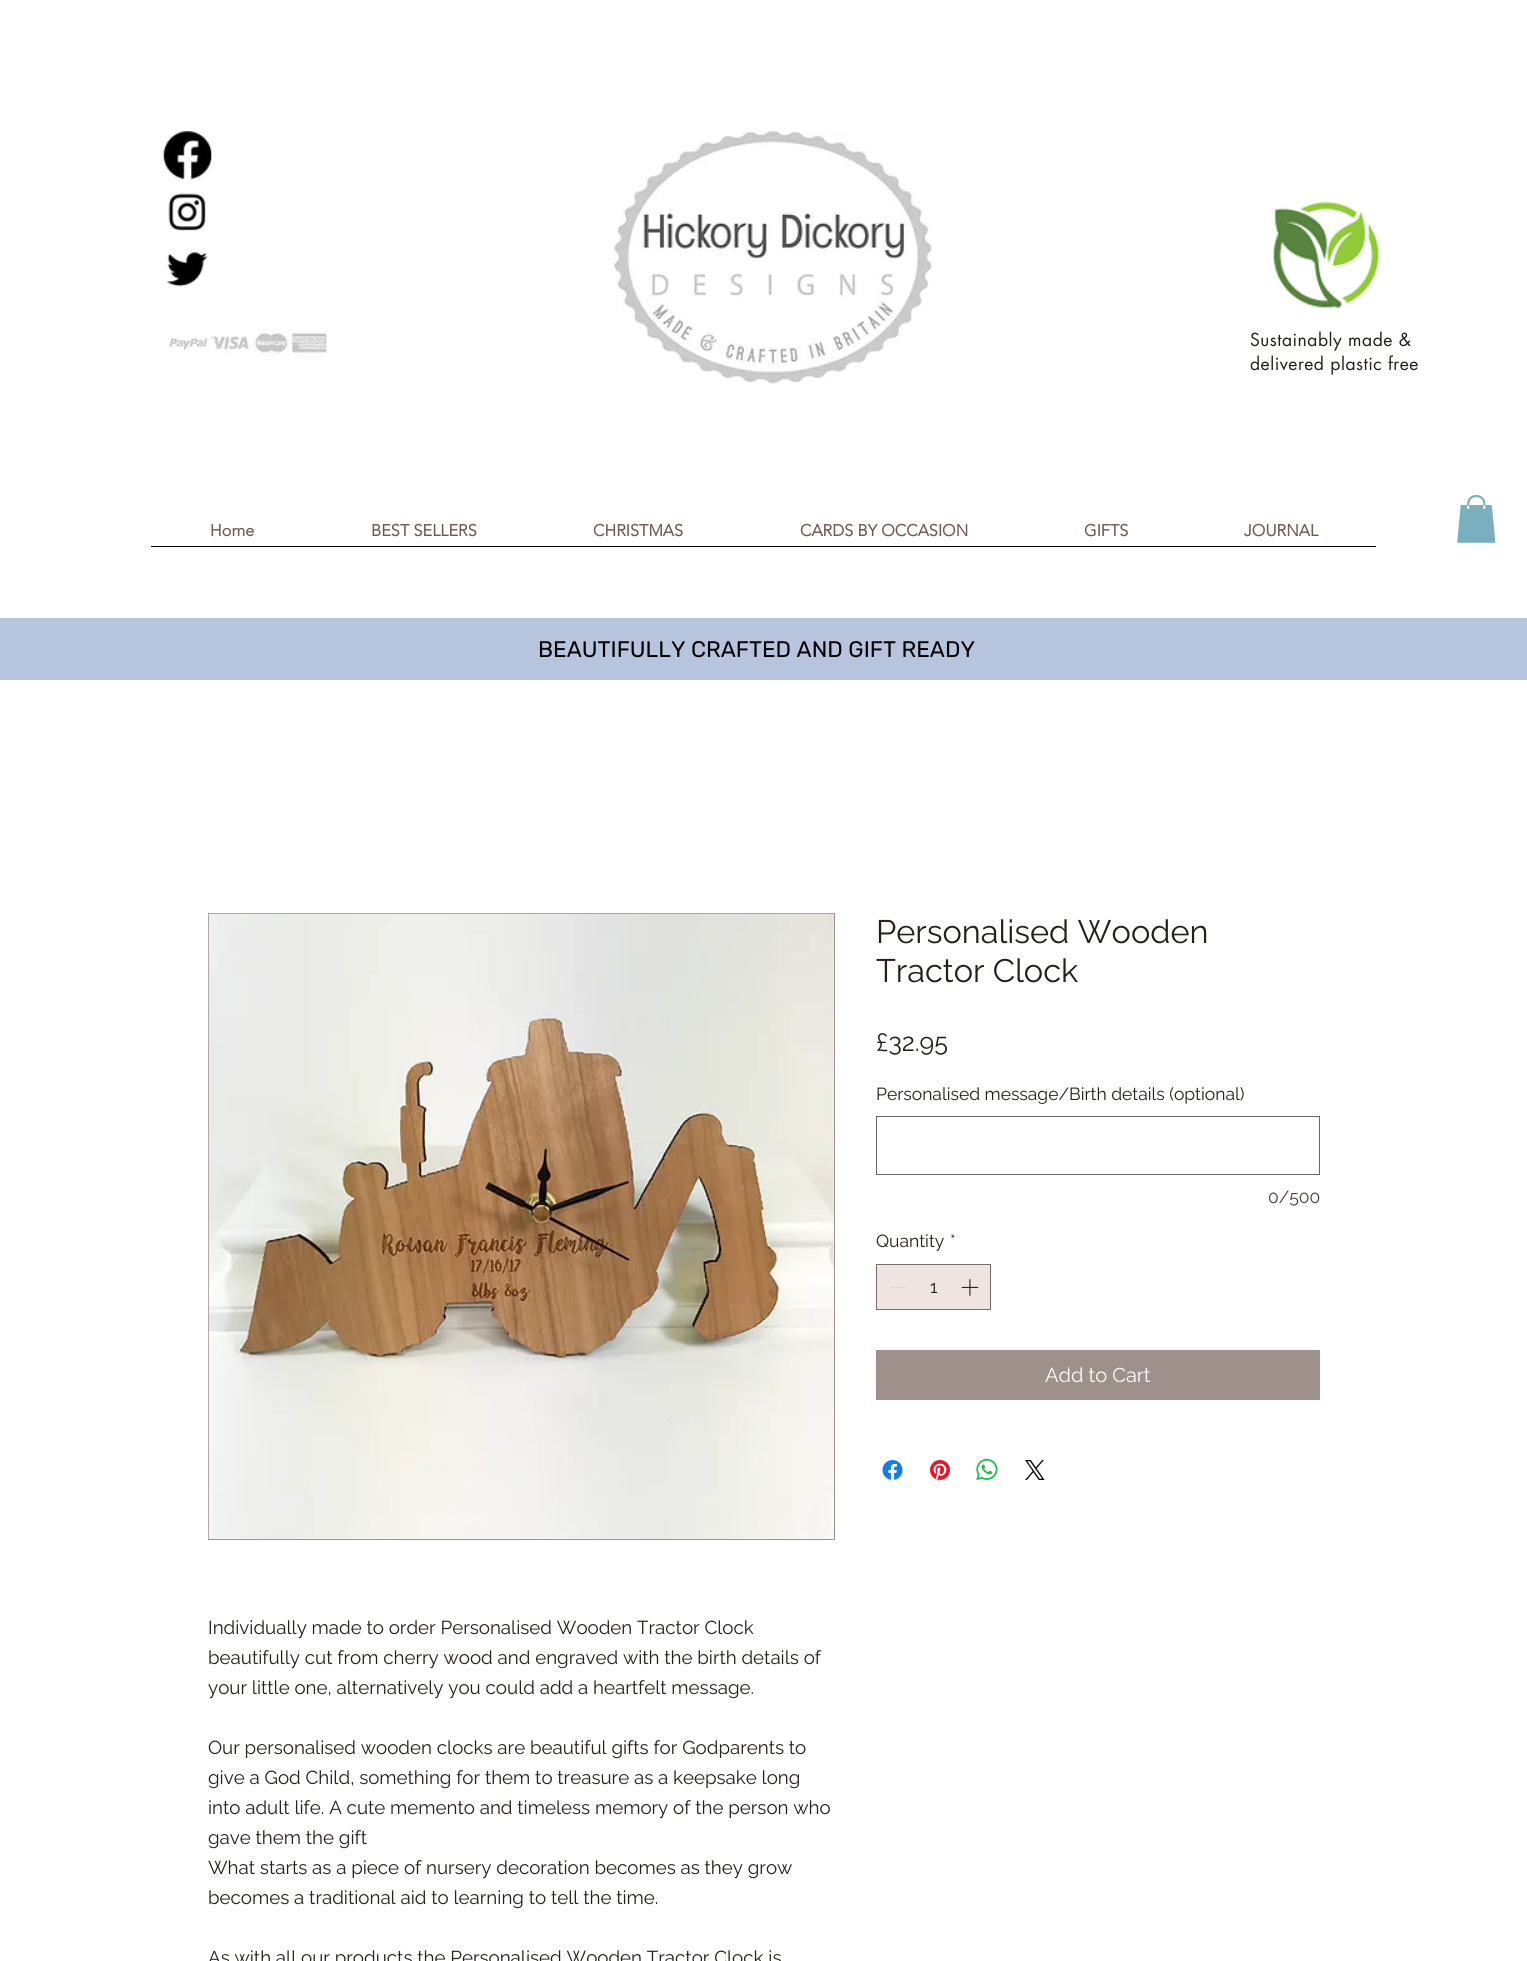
import math
import cairo

surface = cairo.ImageSurface(cairo.FORMAT_RGB24, 1527, 1961)
c = cairo.Context(surface)
options = cairo.FontOptions()
options.set_hint_metrics(cairo.HINT_METRICS_OFF)
options.set_hint_style(cairo.HINT_STYLE_NONE)
c.set_font_options(options)
c.set_miter_limit(4)
def C(code):
 c.set_source_rgb(*(v / 255 for v in bytes.fromhex(code[-6:])))
def F(family, size, italic, bold):
 c.select_font_face(family, cairo.FONT_SLANT_ITALIC if italic else cairo.FONT_SLANT_NORMAL, cairo.FONT_WEIGHT_BOLD if bold else cairo.FONT_WEIGHT_NORMAL)
 c.set_font_size(size)
def T(x, y, s):
 c.move_to(x, y)
 c.show_text(s)
def L(x, y, s, letter, word):
 c.move_to(x, y)
 for ch in s:
  c.show_text(ch)
  c.rel_move_to(letter + word * (ch == ' '), 0)
def R(x, y, w, h):
 c.rectangle(x, y, w, h)
 c.fill()
def I(path, x, y, w, h):
 c.save()
 c.set_source_surface(cairo.ImageSurface.create_from_png(path), x, y)
 c.rectangle(x, y, w, h)
 c.fill()
 c.restore()
C('ffffff')
c.paint()
I('1.png',163,131,49,48)
I('2.png',168,193,38,38)
I('3.png',166,252,42,35)
I('4.png',613,131,319,253)
I('5.png',1272,201,108,108)
I('6.png',169,331,160,25)
F('futura',17.5,0,0)
C('251e1b')
L(1250,346,'Sustainably made &',.5,0)
L(1250,370,'delivered plastic free',.5,0)
F('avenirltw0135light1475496',16.25,0,1)
C('6e5a51')
T(210,536,'Home')
T(371,536,'BEST SELLERS')
T(593,536,'CHRISTMAS')
T(800,536,'CARDS BY OCCASION')
T(1084,536,'GIFTS')
T(1244,536,'JOURNAL')
C('000000')
R(151,546,1225,1)
I('7.png',1457,495,39,48)
C('b7c4dd')
R(0,618,1527,62)
F('Rubik',22.5,0,0)
C('000000')
T(538,657,'BEAUTIFULLY CRAFTED AND GIFT READY')
F('Raleway',32.5,0,0)
C('251e1b')
T(876,943,'Personalised Wooden')
T(876,982,'Tractor Clock')
F('Raleway',25,0,0)
T(876,1051,'£32.95')
F('Raleway',17.5,0,0)
T(876,1100,'Personalised message/Birth details (optional)')
c.rectangle(876.5,1116.5,443,58)
C('666666')
c.set_line_width(1)
c.stroke()
C('493c36')
T(1268,1203,'0/500')
C('251e1b')
T(876,1247,'Quantity')
T(950,1247,'*')
C('eee4e0')
c.rectangle(876.5,1264.5,114,45)
c.fill_preserve()
C('756d6a')
c.stroke()
C('dbd6d4')
R(891,1287,16,1)
C('251e1b')
T(930,1293,'1')
I('8.png',961,1279,18,17)
C('9e908a')
R(876,1350,444,50)
F('Raleway',20,0,0)
C('ffffff')
T(1045,1382,'Add to Cart')
I('9.png',882,1460,21,20)
I('10.png',930,1460,20,20)
I('11.png',976,1458,22,23)
I('12.png',1025,1460,20,20)
c.rectangle(208.5,913.5,626,626)
C('9e908a')
c.stroke()
I('13.png',208,913,626,626)
F('Raleway',18.75,0,0)
C('251e1b')
T(208,1634,'Individually made to order Personalised Wooden Tractor Clock')
T(208,1664,'beautifully cut from cherry wood and engraved with the birth details of')
T(208,1694,'your little one, alternatively you could add a heartfelt message.')
T(208,1754,'Our personalised wooden clocks are beautiful gifts for Godparents to')
T(208,1784,'give a God Child, something for them to treasure as a keepsake long')
T(208,1814,'into adult life. A cute memento and timeless memory of the person who')
T(208,1844,'gave them the gift')
T(208,1874,'What starts as a piece of nursery decoration becomes as they grow')
T(208,1904,'becomes a traditional aid to learning to tell the time.')
T(208,1964,'As with all our products the Personalised Wooden Tractor Clock is')
surface.write_to_png('o.png')
